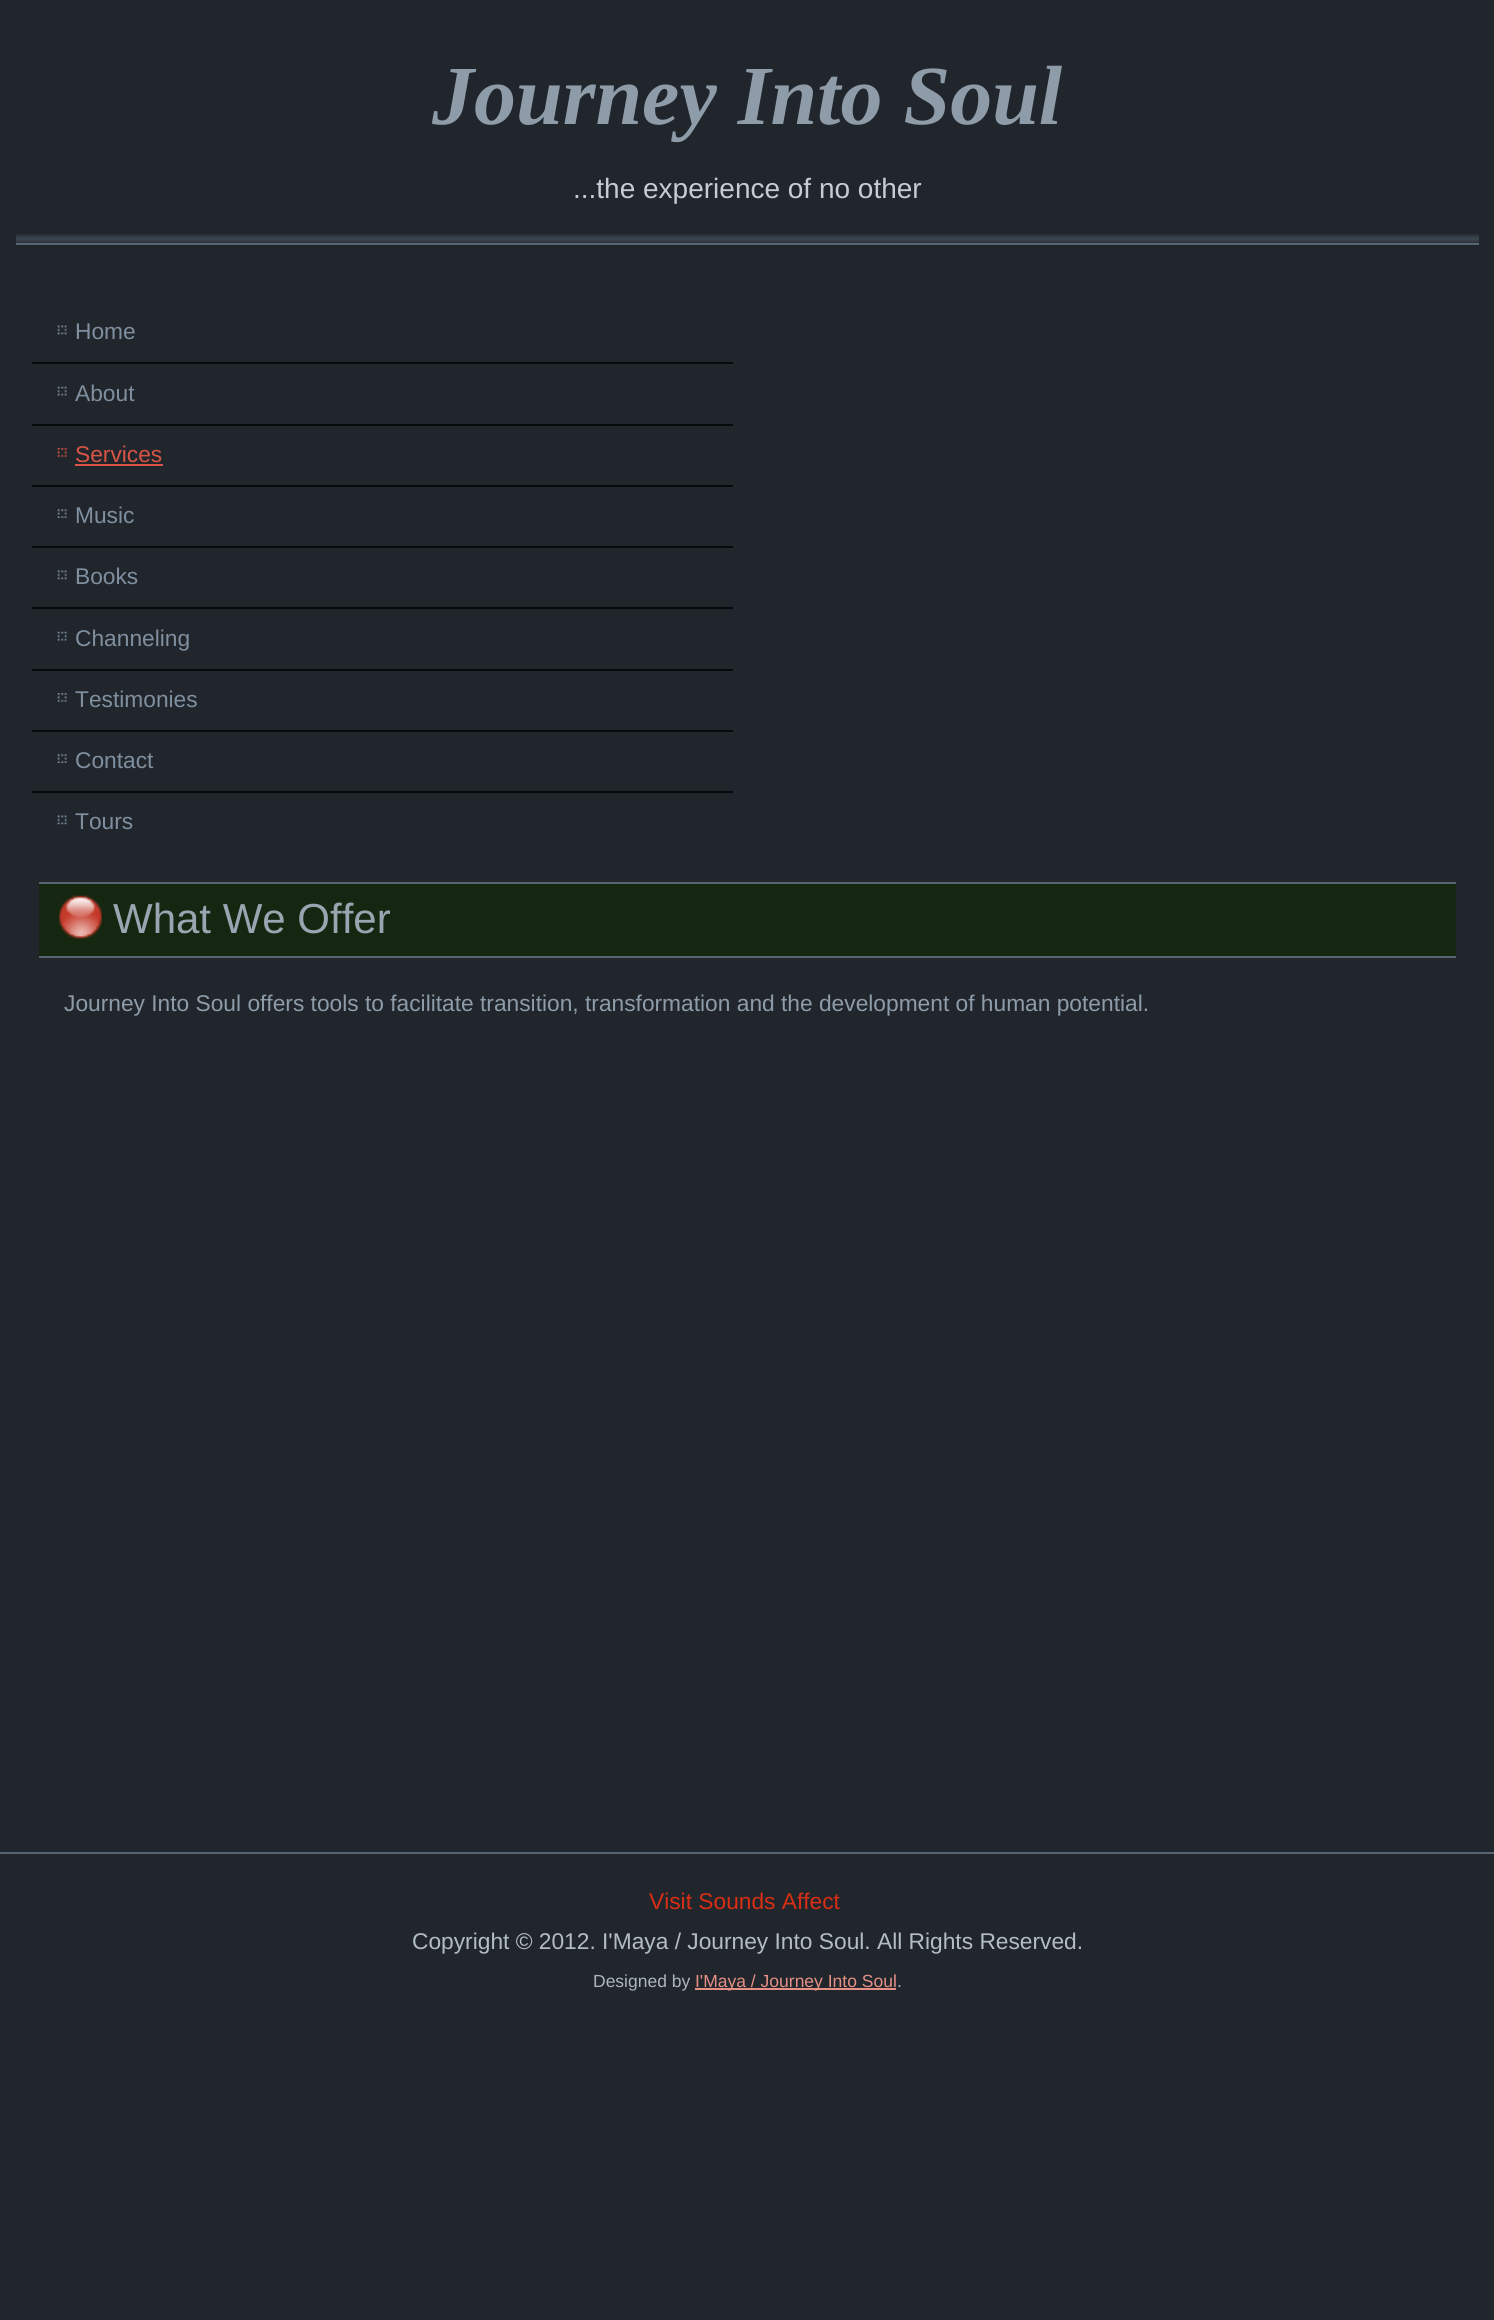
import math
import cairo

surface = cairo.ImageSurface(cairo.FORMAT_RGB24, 1494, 2320)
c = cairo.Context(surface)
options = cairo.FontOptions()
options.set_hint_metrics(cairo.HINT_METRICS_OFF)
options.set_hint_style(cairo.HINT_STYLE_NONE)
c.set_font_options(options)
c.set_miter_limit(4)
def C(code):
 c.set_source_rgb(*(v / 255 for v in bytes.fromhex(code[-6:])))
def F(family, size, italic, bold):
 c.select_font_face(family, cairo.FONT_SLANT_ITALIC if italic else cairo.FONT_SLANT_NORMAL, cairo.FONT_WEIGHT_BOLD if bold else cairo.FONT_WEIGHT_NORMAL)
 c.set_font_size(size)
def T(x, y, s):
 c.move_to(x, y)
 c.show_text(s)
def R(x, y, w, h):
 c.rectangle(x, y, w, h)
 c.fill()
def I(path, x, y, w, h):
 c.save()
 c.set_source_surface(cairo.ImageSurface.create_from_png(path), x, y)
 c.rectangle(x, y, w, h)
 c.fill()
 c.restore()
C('21262c')
c.paint()
F('Liberation Serif',84,1,1)
C('8e9ca9')
T(432,124,'Journey Into Soul')
F('Liberation Sans',28,0,0)
C('c5ccd3')
T(573,198,'...the experience of no other')
gradient = cairo.LinearGradient(747,233,747,245)
gradient.add_color_stop_rgba(0,0.122,0.141,0.161,1)
gradient.add_color_stop_rgba(.4,0.224,0.259,0.298,1)
gradient.add_color_stop_rgba(.5,0.231,0.271,0.306,1)
gradient.add_color_stop_rgba(.6,0.224,0.259,0.298,1)
gradient.add_color_stop_rgba(1,0.122,0.141,0.161,1)
c.set_source(gradient)
R(16,234,1463,9)
C('586674')
R(16,243,1463,2)
I('1.png',57,325,10,10)
F('Liberation Sans',22.75,0,0)
C('7f8f9f')
T(75,339,'Home')
C('070809')
R(32,362,701,2)
I('2.png',57,386,10,10)
C('7f8f9f')
T(75,401,'About')
C('070809')
R(32,424,701,2)
I('3.png',57,448,10,9)
C('d85446')
T(75,462,'Services')
R(75,464,88,2)
C('070809')
R(32,485,701,2)
I('4.png',57,509,10,9)
C('7f8f9f')
T(75,523,'Music')
C('070809')
R(32,546,701,2)
I('1.png',57,570,10,10)
C('7f8f9f')
T(75,584,'Books')
C('070809')
R(32,607,701,2)
I('2.png',57,631,10,10)
C('7f8f9f')
T(75,646,'Channeling')
C('070809')
R(32,669,701,2)
I('5.png',57,693,10,9)
C('7f8f9f')
T(75,707,'Testimonies')
C('070809')
R(32,730,701,2)
I('4.png',57,754,10,9)
C('7f8f9f')
T(75,768,'Contact')
C('070809')
R(32,791,701,2)
I('1.png',57,815,10,10)
C('7f8f9f')
T(75,829,'Tours')
C('162711')
R(39,884,1417,72)
C('586674')
R(39,882,1417,2)
R(39,956,1417,2)
I('6.png',59,895,43,44)
F('Liberation Sans',42,0,0)
C('99a6b2')
T(113,933,'What We Offer')
F('Liberation Sans',22.75,0,0)
C('8e9ca9')
T(64,1011,'Journey Into Soul offers tools to facilitate transition, transformation and the development of human potential.')
C('586674')
R(0,1852,1494,2)
C('d72e14')
T(649,1909,'Visit Sounds Affect')
C('b3bdc6')
T(412,1949,'Copyright © 2012. I\'Maya / Journey Into Soul. All Rights Reserved.')
F('Liberation Sans',17.5,0,0)
C('abb5bf')
T(593,1987,'Designed by')
C('e58f85')
R(695,1988,201,2)
T(695,1987,'I\'Maya / Journey Into Soul')
C('abb5bf')
T(897,1987,'.')
surface.write_to_png('o.png')
